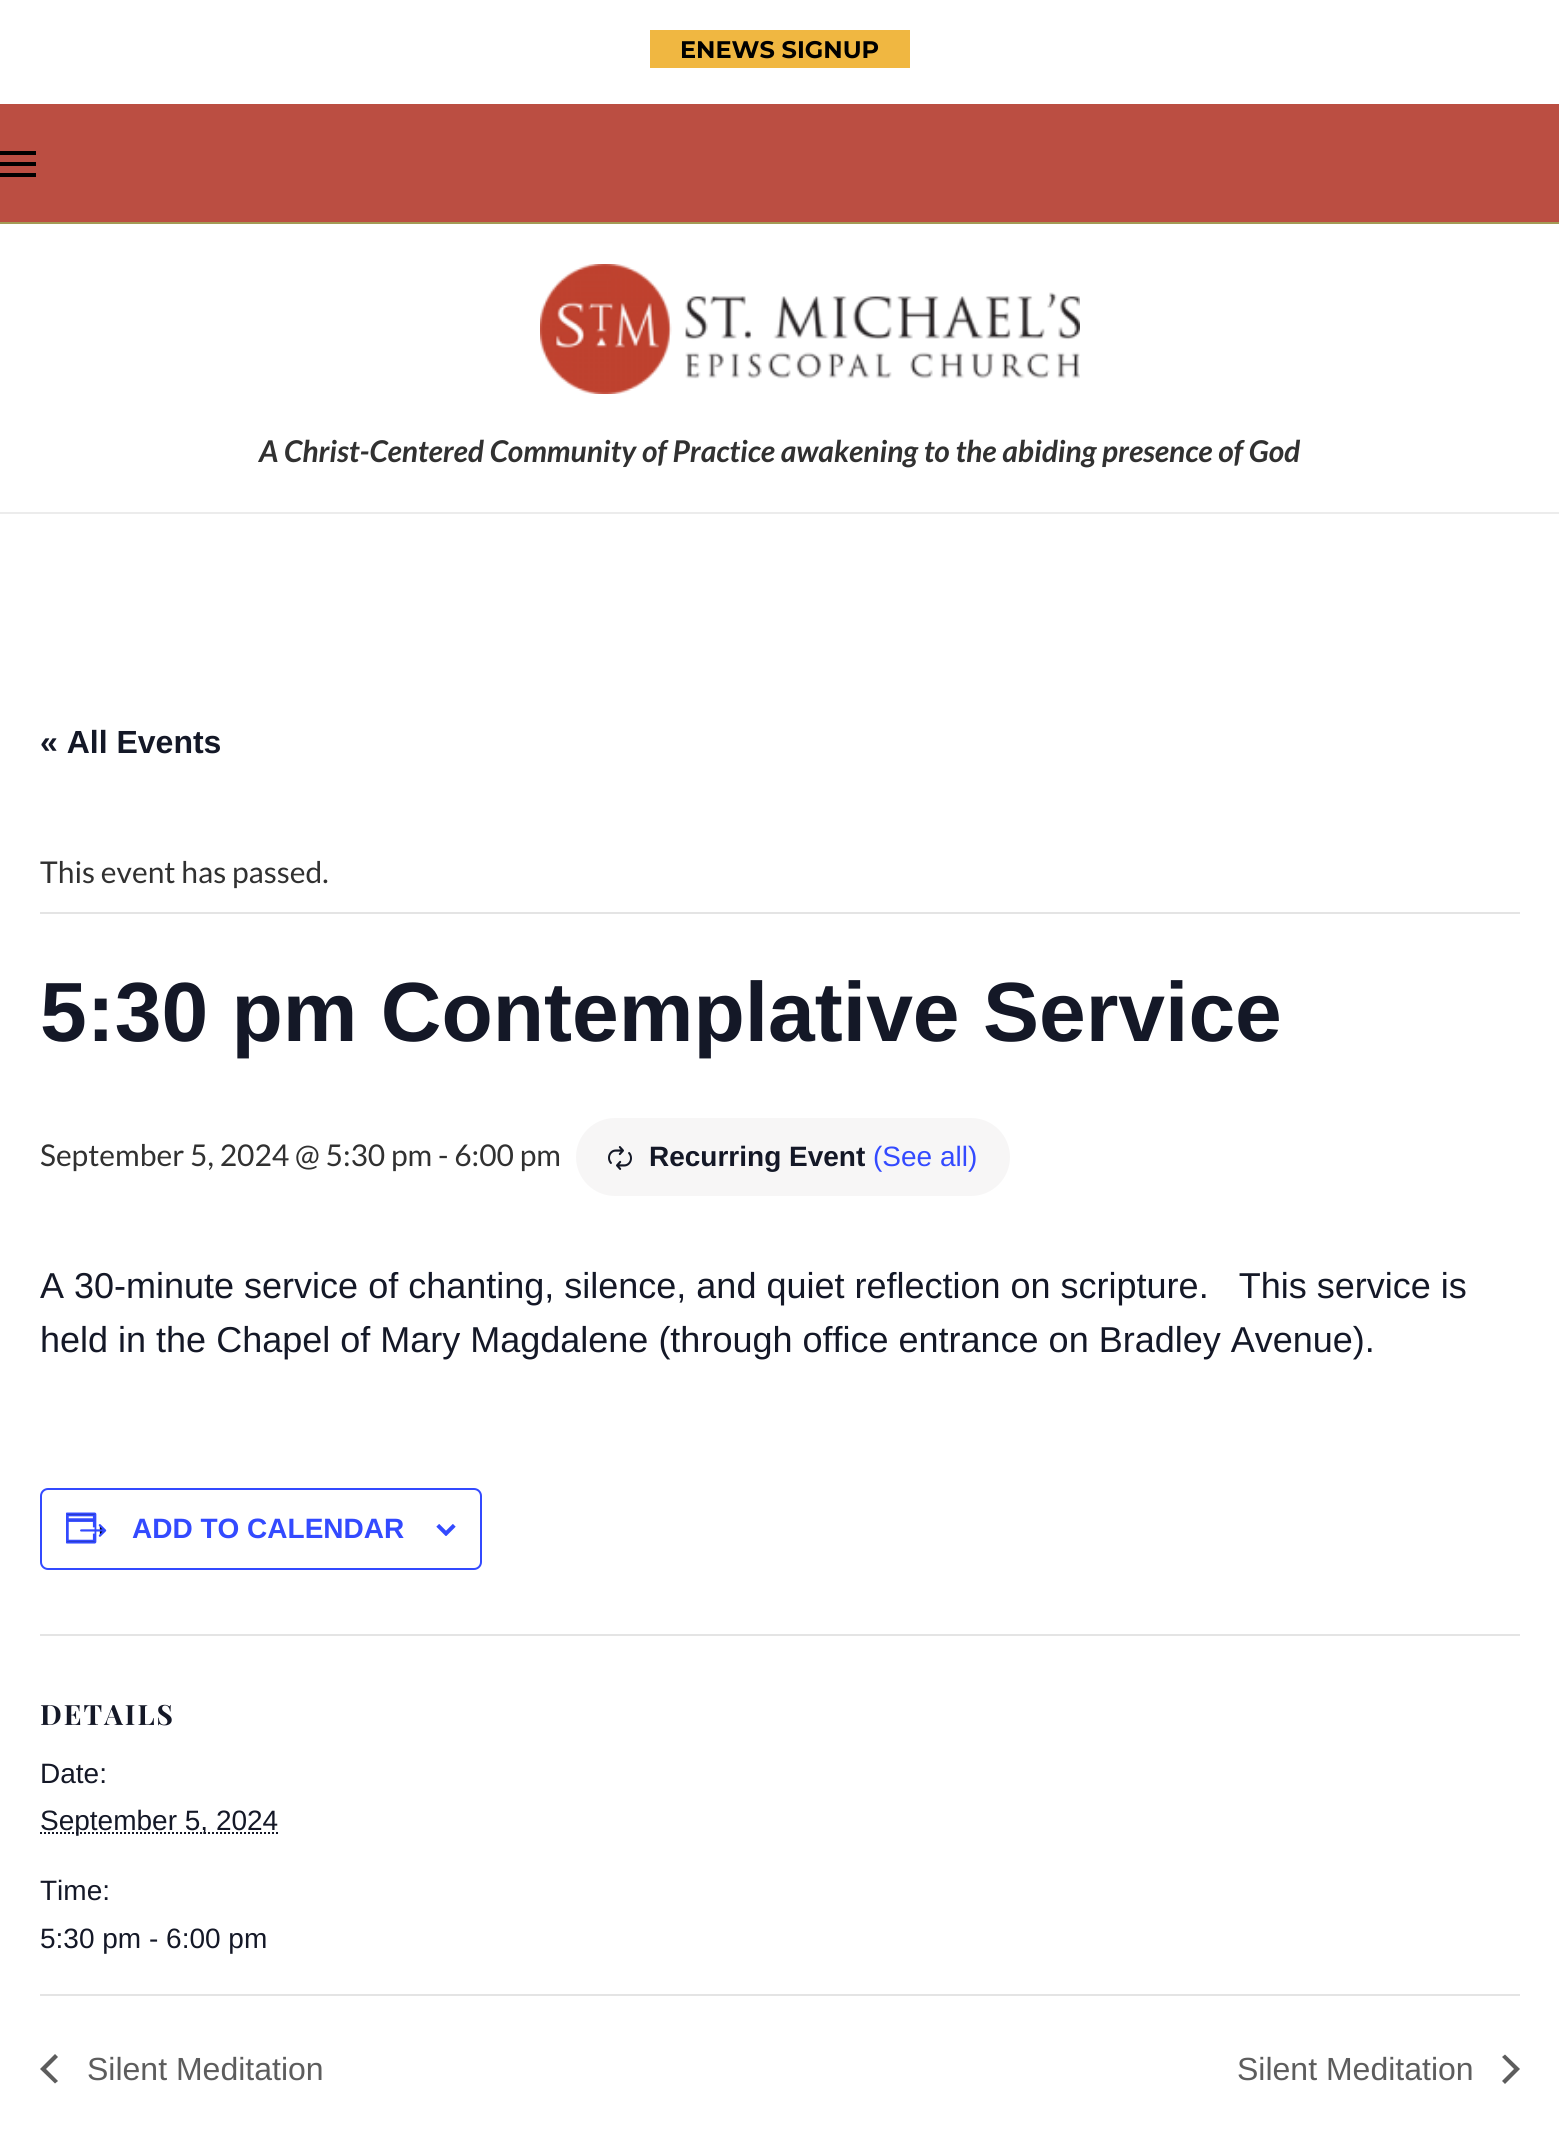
import math
import cairo

surface = cairo.ImageSurface(cairo.FORMAT_RGB24, 1559, 2154)
c = cairo.Context(surface)
options = cairo.FontOptions()
options.set_hint_metrics(cairo.HINT_METRICS_OFF)
options.set_hint_style(cairo.HINT_STYLE_NONE)
c.set_font_options(options)
c.set_miter_limit(4)
def C(code):
 c.set_source_rgb(*(v / 255 for v in bytes.fromhex(code[-6:])))
def F(family, size, italic, bold):
 c.select_font_face(family, cairo.FONT_SLANT_ITALIC if italic else cairo.FONT_SLANT_NORMAL, cairo.FONT_WEIGHT_BOLD if bold else cairo.FONT_WEIGHT_NORMAL)
 c.set_font_size(size)
def T(x, y, s):
 c.move_to(x, y)
 c.show_text(s)
def L(x, y, s, letter, word):
 c.move_to(x, y)
 for ch in s:
  c.show_text(ch)
  c.rel_move_to(letter + word * (ch == ' '), 0)
def R(x, y, w, h):
 c.rectangle(x, y, w, h)
 c.fill()
def Q(x, y, w, h, r):
 c.new_sub_path()
 for i, (u, v) in enumerate([(x + w - r, y + h - r), (x + r, y + h - r), (x + r, y + r), (x + w - r, y + r)]):
  c.arc(u, v, r, i * math.pi / 2, (i + 1) * math.pi / 2)
 c.close_path()
def I(path, x, y, w, h):
 c.save()
 c.set_source_surface(cairo.ImageSurface.create_from_png(path), x, y)
 c.rectangle(x, y, w, h)
 c.fill()
 c.restore()
C('ffffff')
c.paint()
C('f0b741')
R(650,30,260,38)
F('Montserrat',24,0,1)
C('000000')
T(680,58,'ENEWS SIGNUP')
C('bb4e42')
R(0,104,1559,118)
C('a49b56')
R(0,222,1559,2)
C('000000')
R(0,151,36,4)
R(0,162,36,4)
R(0,173,36,4)
C('ececec')
R(0,512,1559,2)
I('1.png',540,264,540,130)
F('Lato',30,1,1)
C('313131')
T(259,462,'A Christ-Centered Community of Practice awakening to the abiding presence of God')
F('Liberation Sans',32,0,1)
C('141827')
T(40,753,'« All Events')
C('e4e4e4')
R(40,912,1480,2)
F('Lato',30,0,0)
C('313131')
T(40,883,'This event has passed.')
F('Liberation Sans',84,0,1)
C('141827')
T(40,1041,'5:30 pm Contemplative Service')
F('Lato',30,0,0)
C('313131')
T(40,1166,'September 5, 2024 @ 5:30 pm - 6:00 pm')
C('f7f6f6')
Q(576,1118,434,78,39)
c.fill()
I('2.png',608,1146,24,24)
F('Liberation Sans',28,0,1)
C('141827')
T(649,1166,'Recurring Event')
F('Liberation Sans',28,0,0)
C('334aff')
T(873,1166,'(See all)')
F('Liberation Sans',36,0,0)
C('141827')
T(40,1298,'A 30-minute service of chanting, silence, and quiet reflection on scripture.   This service is')
T(40,1352,'held in the Chapel of Mary Magdalene (through office entrance on Bradley Avenue).')
Q(41,1489,440,80,7)
C('334aff')
c.stroke()
I('3.png',66,1512,41,32)
F('Liberation Sans',28,0,1)
T(132,1538,'ADD TO CALENDAR')
I('4.png',436,1524,20,12)
C('e4e4e4')
R(40,1634,1480,2)
F('Playfair Display',28,0,1)
C('141827')
L(40,1725,'DETAILS',2,0)
F('Liberation Sans',28,0,0)
T(40,1783,'Date:')
c.new_path()
c.move_to(40,1833)
c.line_to(278,1833)
c.set_dash([2,2])
c.stroke()
T(40,1830,'September 5, 2024')
T(40,1900,'Time:')
T(40,1948,'5:30 pm - 6:00 pm')
C('e4e4e4')
R(40,1994,1480,2)
C('5d5d5d')
c.new_path()
c.move_to(58,2081)
c.line_to(55,2083.5)
c.line_to(40,2069)
c.line_to(55,2054)
c.line_to(58,2057)
c.line_to(46,2069)
c.close_path()
c.fill()
F('Liberation Sans',32,0,0)
T(87,2080,'Silent Meditation')
T(1237,2080,'Silent Meditation')
c.new_path()
c.move_to(1502,2057)
c.line_to(1505,2054.5)
c.line_to(1520,2069)
c.line_to(1505,2084)
c.line_to(1502,2081)
c.line_to(1514,2069)
c.close_path()
c.fill()
surface.write_to_png('o.png')
